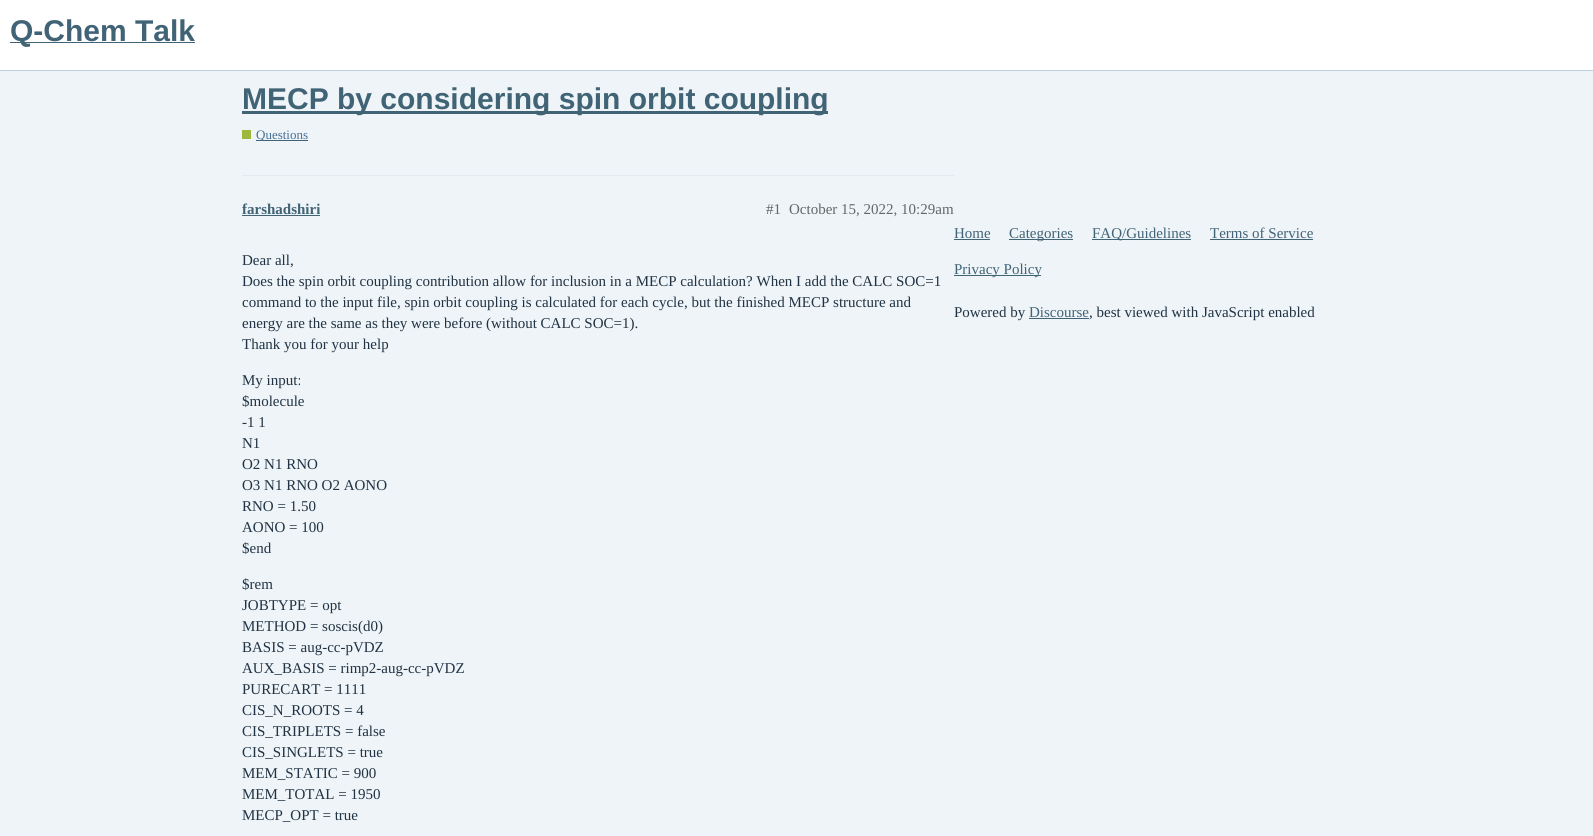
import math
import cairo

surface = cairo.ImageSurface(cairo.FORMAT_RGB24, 1593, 836)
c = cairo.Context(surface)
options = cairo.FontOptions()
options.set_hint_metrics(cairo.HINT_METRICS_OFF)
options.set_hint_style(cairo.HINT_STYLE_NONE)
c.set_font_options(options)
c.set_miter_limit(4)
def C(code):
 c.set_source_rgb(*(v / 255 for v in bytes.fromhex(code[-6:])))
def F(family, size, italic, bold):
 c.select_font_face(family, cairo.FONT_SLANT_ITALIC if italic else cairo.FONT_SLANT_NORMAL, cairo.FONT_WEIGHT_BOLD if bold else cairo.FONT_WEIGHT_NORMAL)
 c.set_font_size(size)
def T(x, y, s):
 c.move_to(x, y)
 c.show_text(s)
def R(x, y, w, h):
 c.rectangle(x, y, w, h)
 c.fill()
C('eef4f7')
c.paint()
C('ffffff')
R(0,0,1593,70)
C('bfcddd')
R(0,70,1593,1)
C('416376')
R(10,42,185,1)
F('Liberation Sans',30,0,1)
T(10,41,'Q-Chem Talk')
R(242,111,586,3)
T(242,109,'MECP by considering spin orbit coupling')
C('9eb83b')
R(242,130,9,9)
C('416376')
R(256,140,52,1)
F('Liberation Serif',13,0,0)
C('487096')
T(256,139,'Questions')
C('e3ebf2')
R(242,175,712,1)
F('Liberation Serif',15,0,1)
C('416376')
T(242,214,'farshadshiri')
R(242,215,78,1)
F('Liberation Serif',15,0,0)
C('666666')
T(766,214,'#1')
T(789,214,'October 15, 2022, 10:29am')
C('203243')
T(242,265,'Dear all,')
T(242,286,'Does the spin orbit coupling contribution allow for inclusion in a MECP calculation? When I add the CALC SOC=1')
T(242,307,'command to the input file, spin orbit coupling is calculated for each cycle, but the finished MECP structure and')
T(242,328,'energy are the same as they were before (without CALC SOC=1).')
c.save()
c.rectangle(242,235,712,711)
c.clip()
T(242,349,'Thank you for your help')
c.restore()
T(242,385,'My input:')
T(242,406,'$molecule')
T(242,427,'-1 1')
T(242,448,'N1')
T(242,469,'O2 N1 RNO')
T(242,490,'O3 N1 RNO O2 AONO')
T(242,511,'RNO = 1.50')
T(242,532,'AONO = 100')
T(242,553,'$end')
T(242,589,'$rem')
T(242,610,'JOBTYPE = opt')
T(242,631,'METHOD = soscis(d0)')
T(242,652,'BASIS = aug-cc-pVDZ')
T(242,673,'AUX_BASIS = rimp2-aug-cc-pVDZ')
T(242,694,'PURECART = 1111')
T(242,715,'CIS_N_ROOTS = 4')
T(242,736,'CIS_TRIPLETS = false')
T(242,757,'CIS_SINGLETS = true')
T(242,778,'MEM_STATIC = 900')
T(242,799,'MEM_TOTAL = 1950')
T(242,820,'MECP_OPT = true')
C('416376')
T(954,238,'Home')
R(954,239,36,1)
R(1009,239,64,1)
T(1009,238,'Categories')
R(1092,239,99,1)
T(1092,238,'FAQ/Guidelines')
T(1210,238,'Terms of Service')
R(1210,239,103,1)
R(954,275,87,1)
T(954,274,'Privacy Policy')
C('203243')
T(954,317,'Powered by')
C('416376')
T(1029,317,'Discourse')
R(1029,318,60,1)
C('203243')
T(1089,317,', best viewed with JavaScript enabled')
surface.write_to_png('o.png')
